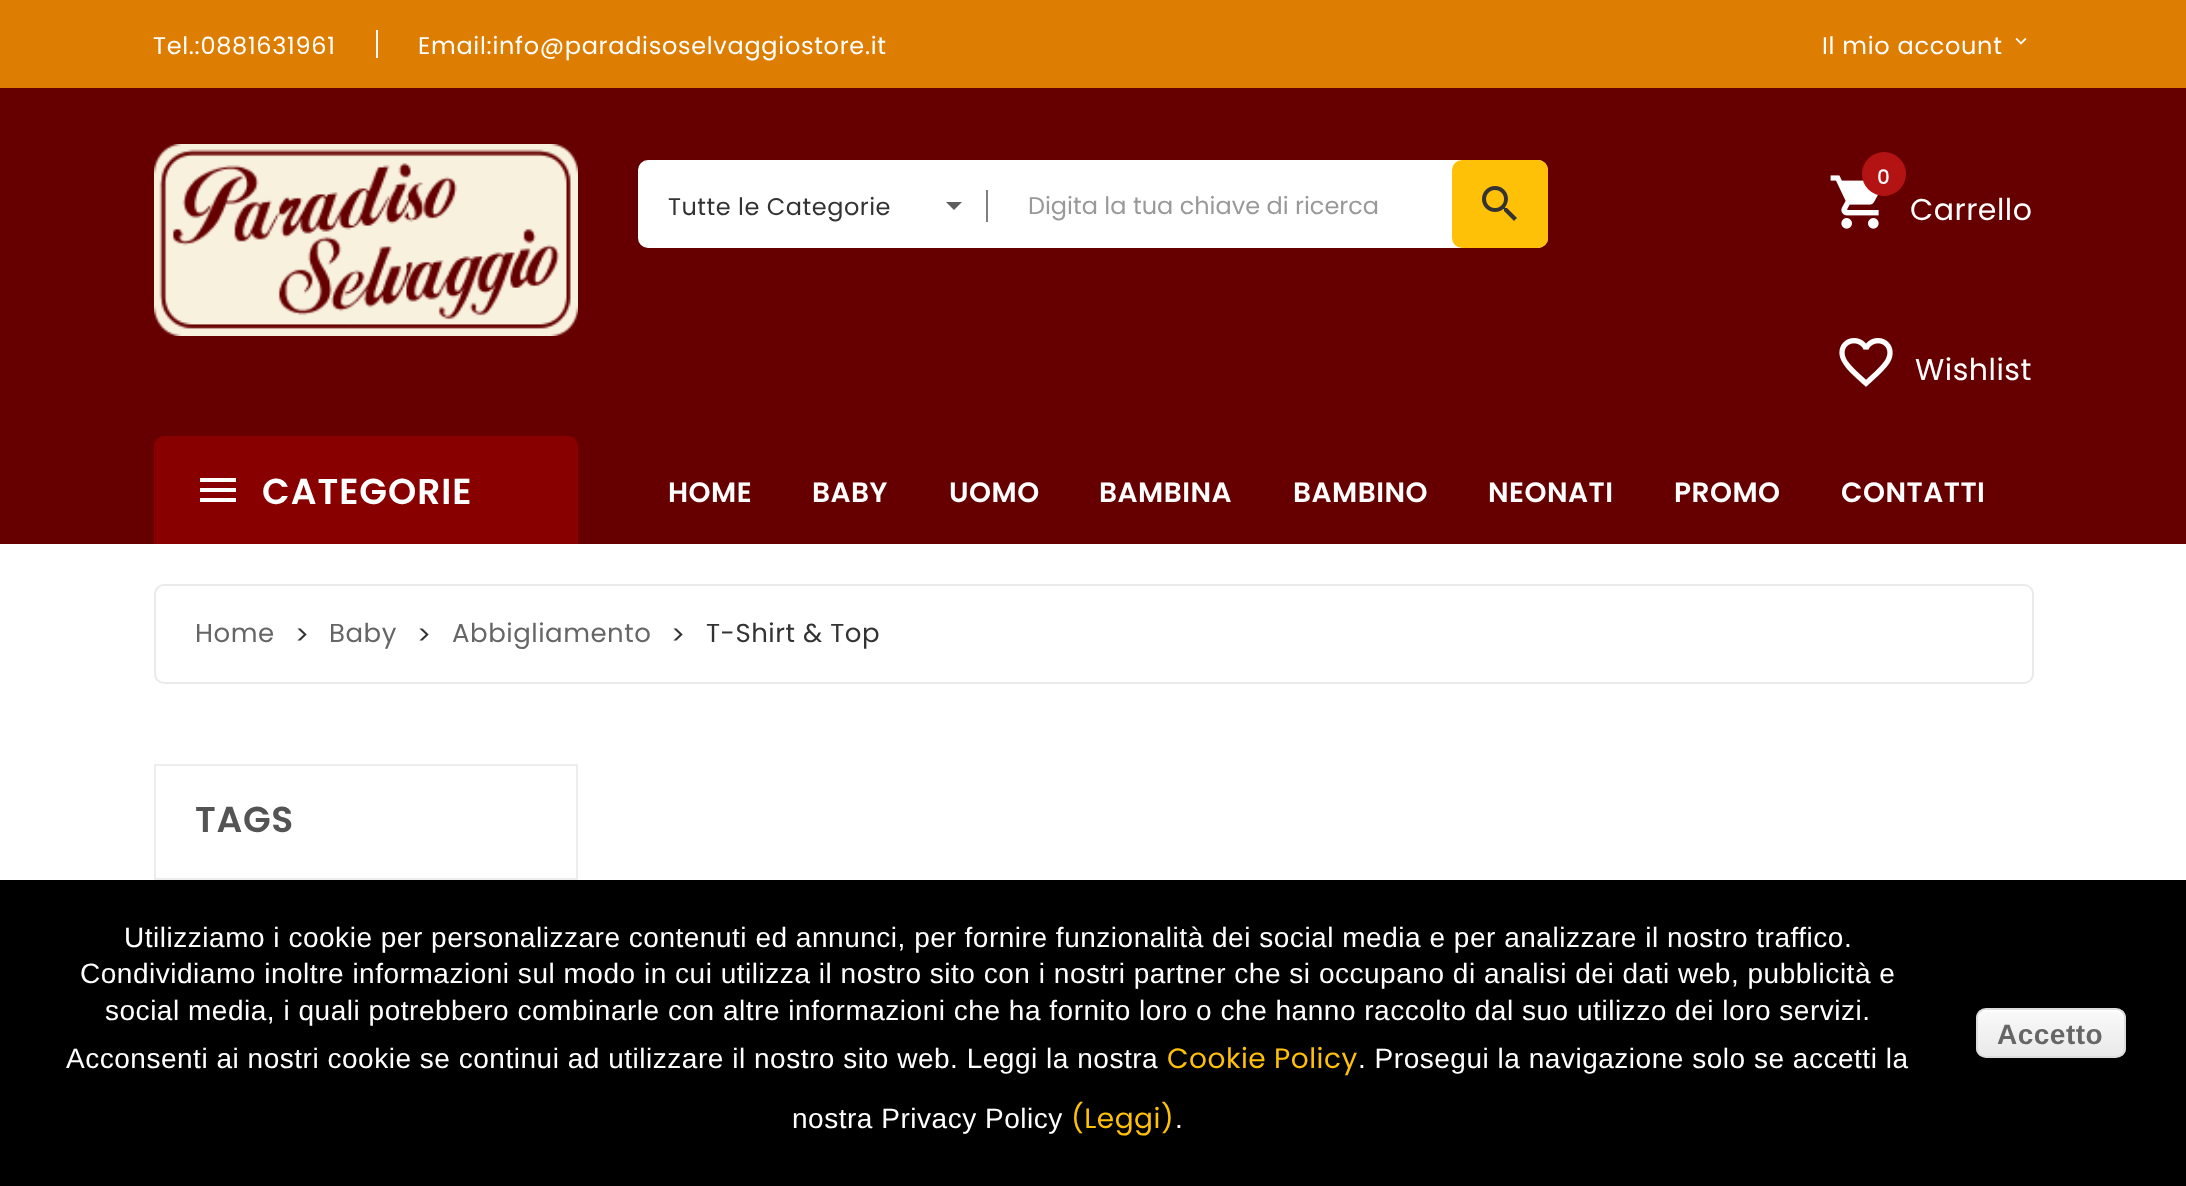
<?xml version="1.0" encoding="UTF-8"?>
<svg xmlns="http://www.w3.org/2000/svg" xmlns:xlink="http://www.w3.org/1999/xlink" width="2186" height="1186">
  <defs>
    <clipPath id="clip1"><rect x="1976" y="1008" width="150" height="50" rx="10" /></clipPath>
    <linearGradient id="g1" gradientUnits="userSpaceOnUse" x1="1978" y1="1010" x2="1978" y2="1056"><stop offset="0.05" stop-color="#f9f9f9" /><stop offset="1" stop-color="#e9e9e9" /></linearGradient>
  </defs>
  <rect width="100%" height="100%" fill="#ffffff" />
  <rect y="88" width="2186" height="456" fill="#660000" />
  <rect width="2186" height="88" fill="#dd7d01" />
  <rect x="376" y="30" width="2" height="28" fill="#f6f7f8" />
  <image x="2015" y="38" width="12" height="7" xlink:href="image1.png" />
  <image x="154" y="144" width="424" height="192" xlink:href="image2.png" />
  <rect x="638" y="160" width="910" height="88" rx="10" fill="#ffffff" />
  <rect x="986" y="190" width="2" height="32" fill="#7f7f7f" />
  <path d="M 946 202 h 16 l -8 8 z" fill="#5d5d5d" />
  <rect x="1452" y="160" width="96" height="88" rx="10" fill="#ffc107" />
  <image x="1482" y="186" width="35" height="35" xlink:href="image3.png" />
  <image x="1830" y="175" width="49" height="54" xlink:href="image4.png" />
  <circle cx="1884" cy="174" r="22" fill="#b31313" />
  <image x="1839" y="338" width="54" height="49" xlink:href="image5.png" />
  <path d="M 164 436 h 404 c 5.5 0 10 4.5 10 10 v 98 h -424 v -98 c 0 -5.5 4.5 -10 10 -10 z" fill="#880000" />
  <path d="M 200 478 h 36 v 4 h -36 z m 0 14 v -4 h 36 v 4 z m 0 10 v -4 h 36 v 4 z" fill="#ffffff" />
  <rect x="155" y="585" width="1878" height="98" rx="9" fill="none" stroke="#eaeaea" stroke-width="2" />
  <rect x="155" y="765" width="422" height="114" fill="none" stroke="#ededed" stroke-width="2" />
  <rect y="880" width="2186" height="306" fill="#000000" />
  <g clip-path="url(#clip1)">
    <rect x="1976" y="1010" width="150" height="46" fill="url(#g1)" />
  </g>
  <path d="M 1986 1012 h 130 c 4 0 8 4 8 8 v -2 c 0 -4 -4 -8 -8 -8 h -130 c -4 0 -8 4 -8 8 v 2 c 0 -4 4 -8 8 -8 z" fill="#ffffff" />
  <rect x="1977" y="1009" width="148" height="48" rx="9" fill="none" stroke="#dcdcdc" stroke-width="2" />
  <text x="153" y="54" style="font-family: Poppins; font-size: 24px; letter-spacing: 0.7px; fill: #ffffff">Tel.:0881631961</text>
  <text x="418" y="54" style="font-family: Poppins; font-size: 24px; letter-spacing: 0.7px; fill: #ffffff">Email:info@paradisoselvaggiostore.it</text>
  <text x="1822" y="54" style="font-family: Poppins; font-size: 24px; letter-spacing: 0.7px; fill: #ffffff">Il mio account</text>
  <text x="668" y="215" style="font-family: Poppins; font-size: 24px; letter-spacing: 0.5px; fill: #333333">Tutte le Categorie</text>
  <text x="1028" y="214" style="font-family: Poppins; font-size: 24px; fill: #999999">Digita la tua chiave di ricerca</text>
  <text x="1877" y="184" style="font-family: Poppins; font-size: 20px; font-weight: 500; fill: #ffffff">0</text>
  <text x="1910" y="220" style="font-family: Poppins; font-size: 30px; letter-spacing: 0.5px; fill: #ffffff">Carrello</text>
  <text x="1915" y="380" style="font-family: Poppins; font-size: 30px; letter-spacing: 0.5px; fill: #ffffff">Wishlist</text>
  <text x="262" y="504" style="font-family: Poppins; font-size: 36px; font-weight: 600; letter-spacing: 1px; fill: #ffffff">CATEGORIE</text>
  <text x="668" y="502" style="font-family: Poppins; font-size: 28px; font-weight: 600; letter-spacing: 0.5px; fill: #ffffff">HOME</text>
  <text x="812" y="502" style="font-family: Poppins; font-size: 28px; font-weight: 600; letter-spacing: 0.5px; fill: #ffffff">BABY</text>
  <text x="949" y="502" style="font-family: Poppins; font-size: 28px; font-weight: 600; letter-spacing: 0.5px; fill: #ffffff">UOMO</text>
  <text x="1099" y="502" style="font-family: Poppins; font-size: 28px; font-weight: 600; letter-spacing: 0.5px; fill: #ffffff">BAMBINA</text>
  <text x="1293" y="502" style="font-family: Poppins; font-size: 28px; font-weight: 600; letter-spacing: 0.5px; fill: #ffffff">BAMBINO</text>
  <text x="1488" y="502" style="font-family: Poppins; font-size: 28px; font-weight: 600; letter-spacing: 0.5px; fill: #ffffff">NEONATI</text>
  <text x="1674" y="502" style="font-family: Poppins; font-size: 28px; font-weight: 600; letter-spacing: 0.5px; fill: #ffffff">PROMO</text>
  <text x="1841" y="502" style="font-family: Poppins; font-size: 28px; font-weight: 600; letter-spacing: 0.5px; fill: #ffffff">CONTATTI</text>
  <text x="195" y="642" style="font-family: Poppins; font-size: 26px; letter-spacing: 0.52px; fill: #666666">Home</text>
  <text x="295" y="644" style="font-family: Poppins; font-size: 26px; letter-spacing: 0.52px; fill: #333333">&gt;</text>
  <text x="329" y="642" style="font-family: Poppins; font-size: 26px; letter-spacing: 0.52px; fill: #666666">Baby</text>
  <text x="417" y="644" style="font-family: Poppins; font-size: 26px; letter-spacing: 0.52px; fill: #333333">&gt;</text>
  <text x="452" y="642" style="font-family: Poppins; font-size: 26px; letter-spacing: 0.52px; fill: #666666">Abbigliamento</text>
  <text x="671" y="644" style="font-family: Poppins; font-size: 26px; letter-spacing: 0.52px; fill: #333333">&gt;</text>
  <text x="706" y="642" style="font-family: Poppins; font-size: 26px; letter-spacing: 0.52px; fill: #333333">T-Shirt &amp; Top</text>
  <text x="195" y="832" style="font-family: Poppins; font-size: 36px; font-weight: 600; letter-spacing: 0.7px; fill: #555454">TAGS</text>
  <text x="124" y="947" style="font-family: Liberation Sans; font-size: 28px; letter-spacing: 0.52px; fill: #ffffff">Utilizziamo i cookie per personalizzare contenuti ed annunci, per fornire funzionalità dei social media e per analizzare il nostro traffico.</text>
  <text x="80" y="983" style="font-family: Liberation Sans; font-size: 28px; letter-spacing: 0.52px; fill: #ffffff">Condividiamo inoltre informazioni sul modo in cui utilizza il nostro sito con i nostri partner che si occupano di analisi dei dati web, pubblicità e</text>
  <text x="105" y="1020" style="font-family: Liberation Sans; font-size: 28px; letter-spacing: 0.52px; fill: #ffffff">social media, i quali potrebbero combinarle con altre informazioni che ha fornito loro o che hanno raccolto dal suo utilizzo dei loro servizi.</text>
  <text x="66" y="1068" style="font-family: Liberation Sans; font-size: 28px; letter-spacing: 0.52px; fill: #ffffff">Acconsenti ai nostri cookie se continui ad utilizzare il nostro sito web. Leggi la nostra</text>
  <text x="1167" y="1068" style="font-family: Poppins; font-size: 28px; letter-spacing: 0.5px; fill: #ffc107">Cookie Policy</text>
  <text x="1358" y="1068" style="font-family: Liberation Sans; font-size: 28px; letter-spacing: 0.52px; fill: #ffffff">. Prosegui la navigazione solo se accetti la</text>
  <text x="792" y="1128" style="font-family: Liberation Sans; font-size: 28px; letter-spacing: 0.52px; fill: #ffffff">nostra Privacy Policy</text>
  <text x="1071" y="1128" style="font-family: Poppins; font-size: 28px; letter-spacing: 0.5px; fill: #ffc107">(Leggi)</text>
  <text x="1175" y="1128" style="font-family: Liberation Sans; font-size: 28px; letter-spacing: 0.52px; fill: #ffffff">.</text>
  <text x="1997" y="1044" style="font-family: Liberation Sans; font-size: 28px; font-weight: bold; letter-spacing: 0.5px; fill: #666666">Accetto</text>
</svg>
